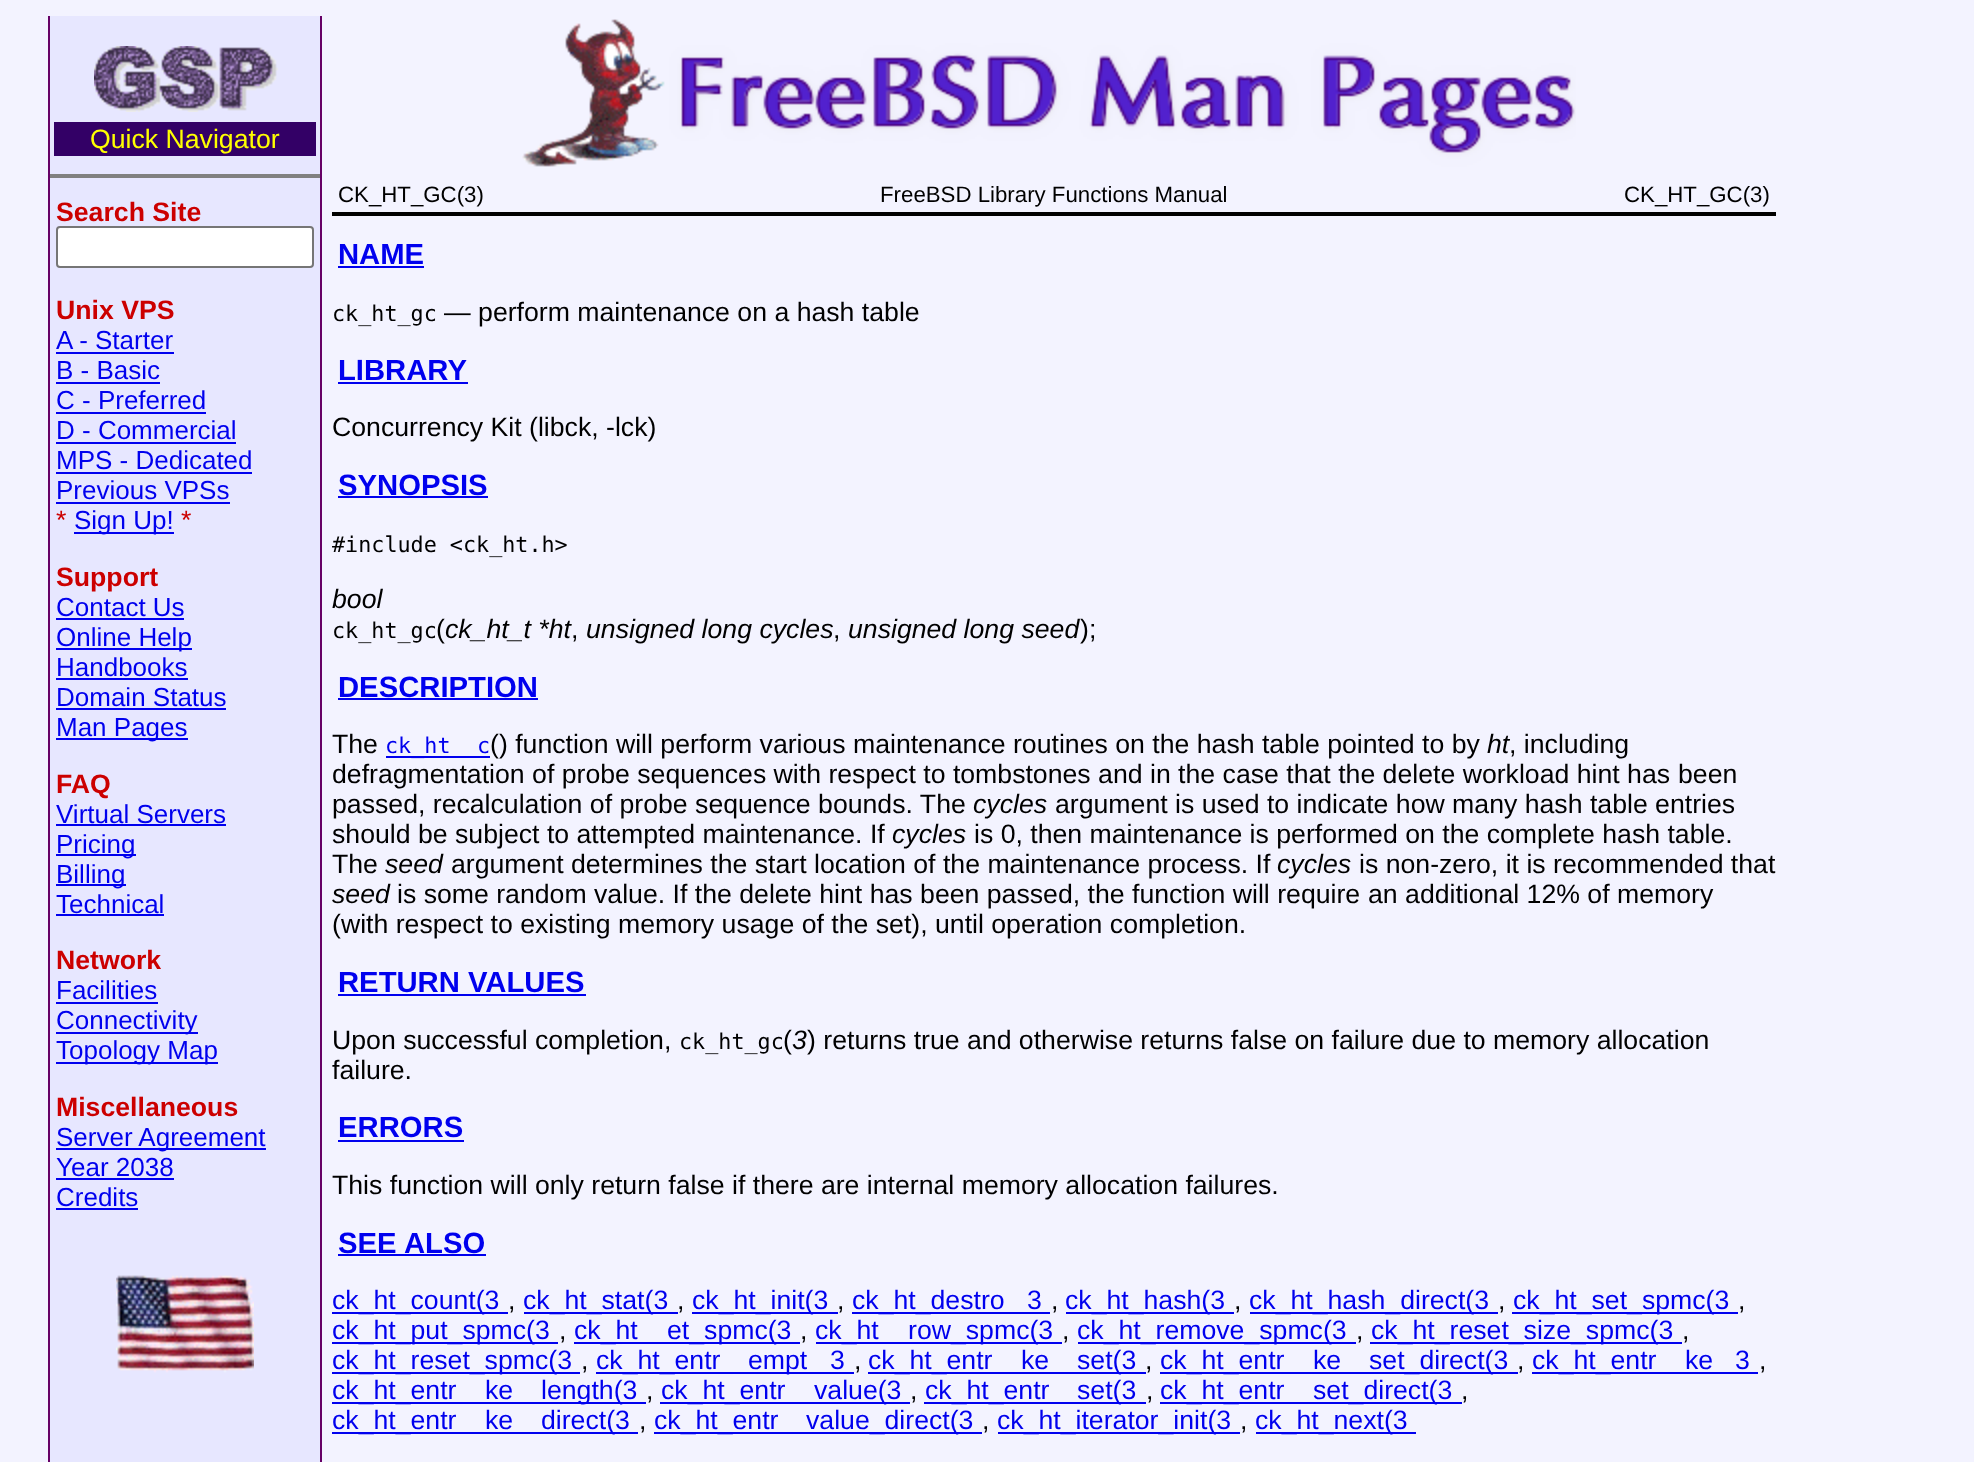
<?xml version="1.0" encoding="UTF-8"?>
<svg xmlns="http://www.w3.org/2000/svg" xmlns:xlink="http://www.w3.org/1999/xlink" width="1974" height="1462">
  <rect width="100%" height="100%" fill="#f3f3ff" />
  <rect x="48" y="16" width="2" height="1446" fill="#660066" />
  <rect x="50" y="16" width="270" height="1446" fill="#e7e7ff" />
  <image x="94" y="46" width="184" height="66" xlink:href="image1.png" />
  <rect x="54" y="122" width="262" height="34" fill="#330066" />
  <rect x="50" y="174" width="270" height="4" fill="#808080" />
  <rect x="57" y="227" width="256" height="40" rx="3" fill="#ffffff" stroke="#767676" stroke-width="2" />
  <rect x="56" y="352" width="118" height="2" fill="#0000ee" />
  <rect x="56" y="382" width="104" height="2" fill="#0000ee" />
  <rect x="56" y="412" width="150" height="2" fill="#0000ee" />
  <rect x="56" y="442" width="180" height="2" fill="#0000ee" />
  <rect x="56" y="472" width="196" height="2" fill="#0000ee" />
  <rect x="56" y="502" width="174" height="2" fill="#0000ee" />
  <rect x="74" y="532" width="100" height="2" fill="#0000ee" />
  <rect x="56" y="618" width="128" height="2" fill="#0000ee" />
  <rect x="56" y="648" width="136" height="2" fill="#0000ee" />
  <rect x="56" y="678" width="132" height="2" fill="#0000ee" />
  <rect x="56" y="708" width="170" height="2" fill="#0000ee" />
  <rect x="56" y="738" width="132" height="2" fill="#0000ee" />
  <rect x="56" y="824" width="170" height="2" fill="#0000ee" />
  <rect x="56" y="854" width="80" height="2" fill="#0000ee" />
  <rect x="56" y="884" width="70" height="2" fill="#0000ee" />
  <rect x="56" y="914" width="108" height="2" fill="#0000ee" />
  <rect x="56" y="1002" width="102" height="2" fill="#0000ee" />
  <rect x="56" y="1032" width="142" height="2" fill="#0000ee" />
  <rect x="56" y="1062" width="162" height="2" fill="#0000ee" />
  <rect x="56" y="1148" width="210" height="2" fill="#0000ee" />
  <rect x="56" y="1178" width="118" height="2" fill="#0000ee" />
  <rect x="56" y="1208" width="82" height="2" fill="#0000ee" />
  <image x="116" y="1275" width="138" height="98" xlink:href="image2.png" />
  <rect x="320" y="16" width="2" height="1446" fill="#660066" />
  <image x="522" y="19" width="1054" height="148" xlink:href="image3.png" />
  <rect x="332" y="212" width="1444" height="4" fill="#000000" />
  <rect x="338" y="266" width="86" height="2" fill="#0000ee" />
  <rect x="338" y="382" width="130" height="2" fill="#0000ee" />
  <rect x="338" y="496" width="150" height="2" fill="#0000ee" />
  <rect x="338" y="698" width="200" height="2" fill="#0000ee" />
  <rect x="386" y="756" width="104" height="2" fill="#0000ee" />
  <rect x="338" y="994" width="248" height="2" fill="#0000ee" />
  <rect x="338" y="1140" width="126" height="2" fill="#0000ee" />
  <rect x="338" y="1254" width="148" height="2" fill="#0000ee" />
  <rect x="332" y="1312" width="176" height="2" fill="#0000ee" />
  <rect x="524" y="1312" width="154" height="2" fill="#0000ee" />
  <rect x="692" y="1312" width="146" height="2" fill="#0000ee" />
  <rect x="852" y="1312" width="198" height="2" fill="#0000ee" />
  <rect x="1066" y="1312" width="168" height="2" fill="#0000ee" />
  <rect x="1250" y="1312" width="248" height="2" fill="#0000ee" />
  <rect x="1512" y="1312" width="226" height="2" fill="#0000ee" />
  <rect x="332" y="1342" width="226" height="2" fill="#0000ee" />
  <rect x="574" y="1342" width="226" height="2" fill="#0000ee" />
  <rect x="816" y="1342" width="246" height="2" fill="#0000ee" />
  <rect x="1078" y="1342" width="278" height="2" fill="#0000ee" />
  <rect x="1370" y="1342" width="312" height="2" fill="#0000ee" />
  <rect x="332" y="1372" width="248" height="2" fill="#0000ee" />
  <rect x="596" y="1372" width="258" height="2" fill="#0000ee" />
  <rect x="868" y="1372" width="278" height="2" fill="#0000ee" />
  <rect x="1160" y="1372" width="358" height="2" fill="#0000ee" />
  <rect x="1532" y="1372" width="226" height="2" fill="#0000ee" />
  <rect x="332" y="1402" width="314" height="2" fill="#0000ee" />
  <rect x="660" y="1402" width="250" height="2" fill="#0000ee" />
  <rect x="924" y="1402" width="222" height="2" fill="#0000ee" />
  <rect x="1160" y="1402" width="302" height="2" fill="#0000ee" />
  <rect x="332" y="1432" width="306" height="2" fill="#0000ee" />
  <rect x="654" y="1432" width="328" height="2" fill="#0000ee" />
  <rect x="998" y="1432" width="242" height="2" fill="#0000ee" />
  <rect x="1256" y="1432" width="160" height="2" fill="#0000ee" />
  <text x="90" y="148" style="font-family: Liberation Sans; font-size: 26.67px; fill: #ffff00">Quick Navigator</text>
  <text x="56" y="221" style="font-family: Liberation Sans; font-size: 26.67px; font-weight: bold; fill: #cc0000">Search Site</text>
  <text x="56" y="319" style="font-family: Liberation Sans; font-size: 26.67px; font-weight: bold; fill: #cc0000">Unix VPS</text>
  <text x="56" y="349" style="font-family: Liberation Sans; font-size: 26px; fill: #0000ee">A - Starter</text>
  <text x="56" y="379" style="font-family: Liberation Sans; font-size: 26px; fill: #0000ee">B - Basic</text>
  <text x="56" y="409" style="font-family: Liberation Sans; font-size: 26px; fill: #0000ee">C - Preferred</text>
  <text x="56" y="439" style="font-family: Liberation Sans; font-size: 26px; fill: #0000ee">D - Commercial</text>
  <text x="56" y="469" style="font-family: Liberation Sans; font-size: 26px; fill: #0000ee">MPS - Dedicated</text>
  <text x="56" y="499" style="font-family: Liberation Sans; font-size: 26px; fill: #0000ee">Previous VPSs</text>
  <text x="56" y="529" style="font-family: Liberation Sans; font-size: 26.67px; fill: #cc0000">*</text>
  <text x="74" y="529" style="font-family: Liberation Sans; font-size: 26px; fill: #0000ee">Sign Up!</text>
  <text x="181" y="529" style="font-family: Liberation Sans; font-size: 26.67px; fill: #cc0000">*</text>
  <text x="56" y="586" style="font-family: Liberation Sans; font-size: 26.67px; font-weight: bold; fill: #cc0000">Support</text>
  <text x="56" y="616" style="font-family: Liberation Sans; font-size: 26px; fill: #0000ee">Contact Us</text>
  <text x="56" y="646" style="font-family: Liberation Sans; font-size: 26px; fill: #0000ee">Online Help</text>
  <text x="56" y="676" style="font-family: Liberation Sans; font-size: 26px; fill: #0000ee">Handbooks</text>
  <text x="56" y="706" style="font-family: Liberation Sans; font-size: 26px; fill: #0000ee">Domain Status</text>
  <text x="56" y="736" style="font-family: Liberation Sans; font-size: 26px; fill: #0000ee">Man Pages</text>
  <text x="56" y="793" style="font-family: Liberation Sans; font-size: 26.67px; font-weight: bold; fill: #cc0000">FAQ</text>
  <text x="56" y="823" style="font-family: Liberation Sans; font-size: 26px; fill: #0000ee">Virtual Servers</text>
  <text x="56" y="853" style="font-family: Liberation Sans; font-size: 26px; fill: #0000ee">Pricing</text>
  <text x="56" y="883" style="font-family: Liberation Sans; font-size: 26px; fill: #0000ee">Billing</text>
  <text x="56" y="913" style="font-family: Liberation Sans; font-size: 26px; fill: #0000ee">Technical</text>
  <text x="56" y="969" style="font-family: Liberation Sans; font-size: 26.67px; font-weight: bold; fill: #cc0000">Network</text>
  <text x="56" y="999" style="font-family: Liberation Sans; font-size: 26px; fill: #0000ee">Facilities</text>
  <text x="56" y="1029" style="font-family: Liberation Sans; font-size: 26px; fill: #0000ee">Connectivity</text>
  <text x="56" y="1059" style="font-family: Liberation Sans; font-size: 26px; fill: #0000ee">Topology Map</text>
  <text x="56" y="1116" style="font-family: Liberation Sans; font-size: 26.67px; font-weight: bold; fill: #cc0000">Miscellaneous</text>
  <text x="56" y="1146" style="font-family: Liberation Sans; font-size: 26px; fill: #0000ee">Server Agreement</text>
  <text x="56" y="1176" style="font-family: Liberation Sans; font-size: 26px; fill: #0000ee">Year 2038</text>
  <text x="56" y="1206" style="font-family: Liberation Sans; font-size: 26px; fill: #0000ee">Credits</text>
  <text x="338" y="202" style="font-family: Liberation Sans; font-size: 22.25px; fill: #000000">CK_HT_GC(3)</text>
  <text x="880" y="202" style="font-family: Liberation Sans; font-size: 22.25px; fill: #000000">FreeBSD Library Functions Manual</text>
  <text x="1624" y="202" style="font-family: Liberation Sans; font-size: 22.25px; fill: #000000">CK_HT_GC(3)</text>
  <text x="338" y="264" style="font-family: Liberation Sans; font-size: 29.25px; font-weight: bold; fill: #0000ee">NAME</text>
  <text x="332" y="321" style="font-family: DejaVu Sans Mono; font-size: 21.75px; fill: #000000">ck_ht_gc</text>
  <text x="444" y="321" style="font-family: Liberation Sans; font-size: 26.67px; fill: #000000">— perform maintenance on a hash table</text>
  <text x="338" y="380" style="font-family: Liberation Sans; font-size: 29.25px; font-weight: bold; fill: #0000ee">LIBRARY</text>
  <text x="332" y="436" style="font-family: Liberation Sans; font-size: 26.67px; fill: #000000">Concurrency Kit (libck, -lck)</text>
  <text x="338" y="495" style="font-family: Liberation Sans; font-size: 29.25px; font-weight: bold; fill: #0000ee">SYNOPSIS</text>
  <text x="332" y="552" style="font-family: DejaVu Sans Mono; font-size: 21.75px; fill: #000000">#include &lt;ck_ht.h&gt;</text>
  <text x="332" y="608" style="font-family: Liberation Sans; font-size: 26.67px; font-style: italic; fill: #000000">bool</text>
  <text x="332" y="638" style="font-family: DejaVu Sans Mono; font-size: 21.75px; fill: #000000">ck_ht_gc</text>
  <text x="436" y="638" style="font-family: Liberation Sans; font-size: 26.67px; fill: #000000">(</text>
  <text x="445" y="638" style="font-family: Liberation Sans; font-size: 26.67px; font-style: italic; fill: #000000">ck_ht_t *ht</text>
  <text x="571" y="638" style="font-family: Liberation Sans; font-size: 26.67px; fill: #000000">,</text>
  <text x="586" y="638" style="font-family: Liberation Sans; font-size: 26.67px; font-style: italic; fill: #000000">unsigned long cycles</text>
  <text x="833" y="638" style="font-family: Liberation Sans; font-size: 26.67px; fill: #000000">,</text>
  <text x="848" y="638" style="font-family: Liberation Sans; font-size: 26.67px; font-style: italic; fill: #000000">unsigned long seed</text>
  <text x="1080" y="638" style="font-family: Liberation Sans; font-size: 26.67px; fill: #000000">);</text>
  <text x="338" y="697" style="font-family: Liberation Sans; font-size: 29.25px; font-weight: bold; fill: #0000ee">DESCRIPTION</text>
  <text x="332" y="753" style="font-family: Liberation Sans; font-size: 26.67px; fill: #000000">The</text>
  <text x="385" y="753" style="font-family: DejaVu Sans Mono; font-size: 21.75px; fill: #0000ee">ck_ht</text>
  <text x="477" y="753" style="font-family: DejaVu Sans Mono; font-size: 21.75px; fill: #0000ee">c</text>
  <text x="490" y="753" style="font-family: Liberation Sans; font-size: 26.67px; fill: #000000">() function will perform various maintenance routines on the hash table pointed</text>
  <text x="1422" y="753" style="font-family: Liberation Sans; font-size: 26.67px; fill: #000000">to by</text>
  <text x="1487" y="753" style="font-family: Liberation Sans; font-size: 26.67px; font-style: italic; fill: #000000">ht</text>
  <text x="1509" y="753" style="font-family: Liberation Sans; font-size: 26.67px; fill: #000000">, including</text>
  <text x="332" y="783" style="font-family: Liberation Sans; font-size: 26.67px; fill: #000000">defragmentation of probe sequences with respect to tombstones and in the case that the delete workload hint has</text>
  <text x="1678" y="783" style="font-family: Liberation Sans; font-size: 26.67px; fill: #000000">been</text>
  <text x="332" y="813" style="font-family: Liberation Sans; font-size: 26.67px; fill: #000000">passed, recalculation of probe sequence bounds. The</text>
  <text x="973" y="813" style="font-family: Liberation Sans; font-size: 26.67px; font-style: italic; fill: #000000">cycles</text>
  <text x="1055" y="813" style="font-family: Liberation Sans; font-size: 26.67px; fill: #000000">argument is used to indicate how many hash table entries</text>
  <text x="332" y="843" style="font-family: Liberation Sans; font-size: 26.67px; fill: #000000">should be subject to attempted maintenance. If</text>
  <text x="892" y="843" style="font-family: Liberation Sans; font-size: 26.67px; font-style: italic; fill: #000000">cycles</text>
  <text x="974" y="843" style="font-family: Liberation Sans; font-size: 26.67px; fill: #000000">is 0, then maintenance is performed on the complete hash table.</text>
  <text x="332" y="873" style="font-family: Liberation Sans; font-size: 26.67px; fill: #000000">The</text>
  <text x="385" y="873" style="font-family: Liberation Sans; font-size: 26.67px; font-style: italic; fill: #000000">seed</text>
  <text x="451" y="873" style="font-family: Liberation Sans; font-size: 26.67px; fill: #000000">argument determines the start location of the maintenance process. If</text>
  <text x="1277" y="873" style="font-family: Liberation Sans; font-size: 26.67px; font-style: italic; fill: #000000">cycles</text>
  <text x="1359" y="873" style="font-family: Liberation Sans; font-size: 26.67px; fill: #000000">is non-zero, it is recommended that</text>
  <text x="332" y="903" style="font-family: Liberation Sans; font-size: 26.67px; font-style: italic; fill: #000000">seed</text>
  <text x="397" y="903" style="font-family: Liberation Sans; font-size: 26.67px; fill: #000000">is some random value. If the delete hint has been passed, the function will require</text>
  <text x="1368" y="903" style="font-family: Liberation Sans; font-size: 26.67px; fill: #000000">an additional 12% of memory</text>
  <text x="332" y="933" style="font-family: Liberation Sans; font-size: 26.67px; fill: #000000">(with respect to existing memory usage of the set), until operation completion.</text>
  <text x="338" y="992" style="font-family: Liberation Sans; font-size: 29.25px; font-weight: bold; fill: #0000ee">RETURN VALUES</text>
  <text x="332" y="1049" style="font-family: Liberation Sans; font-size: 26.67px; fill: #000000">Upon successful completion,</text>
  <text x="679" y="1049" style="font-family: DejaVu Sans Mono; font-size: 21.75px; fill: #000000">ck_ht_gc</text>
  <text x="783" y="1049" style="font-family: Liberation Sans; font-size: 26.67px; fill: #000000">(</text>
  <text x="792" y="1049" style="font-family: Liberation Sans; font-size: 26.67px; font-style: italic; fill: #000000">3</text>
  <text x="807" y="1049" style="font-family: Liberation Sans; font-size: 26.67px; fill: #000000">) returns true and otherwise returns false on failure due to memory allocation</text>
  <text x="332" y="1079" style="font-family: Liberation Sans; font-size: 26.67px; fill: #000000">failure.</text>
  <text x="338" y="1137" style="font-family: Liberation Sans; font-size: 29.25px; font-weight: bold; fill: #0000ee">ERRORS</text>
  <text x="332" y="1194" style="font-family: Liberation Sans; font-size: 26.67px; fill: #000000">This function will only return false if there are internal memory allocation failures.</text>
  <text x="338" y="1253" style="font-family: Liberation Sans; font-size: 29.25px; font-weight: bold; fill: #0000ee">SEE</text>
  <text x="404" y="1253" style="font-family: Liberation Sans; font-size: 29.25px; font-weight: bold; fill: #0000ee">ALSO</text>
  <text x="332" y="1309" style="font-family: Liberation Sans; font-size: 26.67px; fill: #0000ee">ck_ht_count(3</text>
  <text x="508" y="1309" style="font-family: Liberation Sans; font-size: 26.67px; fill: #000000">,</text>
  <text x="523" y="1309" style="font-family: Liberation Sans; font-size: 26.67px; fill: #0000ee">ck_ht_stat(3</text>
  <text x="677" y="1309" style="font-family: Liberation Sans; font-size: 26.67px; fill: #000000">,</text>
  <text x="692" y="1309" style="font-family: Liberation Sans; font-size: 26.67px; fill: #0000ee">ck_ht_init(3</text>
  <text x="837" y="1309" style="font-family: Liberation Sans; font-size: 26.67px; fill: #000000">,</text>
  <text x="852" y="1309" style="font-family: Liberation Sans; font-size: 26.67px; fill: #0000ee">ck_ht_destro</text>
  <text x="1027" y="1309" style="font-family: Liberation Sans; font-size: 26.67px; fill: #0000ee">3</text>
  <text x="1051" y="1309" style="font-family: Liberation Sans; font-size: 26.67px; fill: #000000">,</text>
  <text x="1065" y="1309" style="font-family: Liberation Sans; font-size: 26.67px; fill: #0000ee">ck_ht_hash(3</text>
  <text x="1234" y="1309" style="font-family: Liberation Sans; font-size: 26.67px; fill: #000000">,</text>
  <text x="1249" y="1309" style="font-family: Liberation Sans; font-size: 26.67px; fill: #0000ee">ck_ht_hash_direct(3</text>
  <text x="1498" y="1309" style="font-family: Liberation Sans; font-size: 26.67px; fill: #000000">,</text>
  <text x="1513" y="1309" style="font-family: Liberation Sans; font-size: 26.67px; fill: #0000ee">ck_ht_set_spmc(3</text>
  <text x="1738" y="1309" style="font-family: Liberation Sans; font-size: 26.67px; fill: #000000">,</text>
  <text x="332" y="1339" style="font-family: Liberation Sans; font-size: 26.67px; fill: #0000ee">ck_ht_put_spmc(3</text>
  <text x="559" y="1339" style="font-family: Liberation Sans; font-size: 26.67px; fill: #000000">,</text>
  <text x="574" y="1339" style="font-family: Liberation Sans; font-size: 26.67px; fill: #0000ee">ck_ht</text>
  <text x="667" y="1339" style="font-family: Liberation Sans; font-size: 26.67px; fill: #0000ee">et_spmc(3</text>
  <text x="800" y="1339" style="font-family: Liberation Sans; font-size: 26.67px; fill: #000000">,</text>
  <text x="815" y="1339" style="font-family: Liberation Sans; font-size: 26.67px; fill: #0000ee">ck_ht</text>
  <text x="908" y="1339" style="font-family: Liberation Sans; font-size: 26.67px; fill: #0000ee">row_spmc(3</text>
  <text x="1062" y="1339" style="font-family: Liberation Sans; font-size: 26.67px; fill: #000000">,</text>
  <text x="1077" y="1339" style="font-family: Liberation Sans; font-size: 26.67px; fill: #0000ee">ck_ht_remove_spmc(3</text>
  <text x="1356" y="1339" style="font-family: Liberation Sans; font-size: 26.67px; fill: #000000">,</text>
  <text x="1371" y="1339" style="font-family: Liberation Sans; font-size: 26.67px; fill: #0000ee">ck_ht_reset_size_spmc(3</text>
  <text x="1682" y="1339" style="font-family: Liberation Sans; font-size: 26.67px; fill: #000000">,</text>
  <text x="332" y="1369" style="font-family: Liberation Sans; font-size: 26.67px; fill: #0000ee">ck_ht_reset_spmc(3</text>
  <text x="581" y="1369" style="font-family: Liberation Sans; font-size: 26.67px; fill: #000000">,</text>
  <text x="596" y="1369" style="font-family: Liberation Sans; font-size: 26.67px; fill: #0000ee">ck_ht_entr</text>
  <text x="748" y="1369" style="font-family: Liberation Sans; font-size: 26.67px; fill: #0000ee">empt</text>
  <text x="830" y="1369" style="font-family: Liberation Sans; font-size: 26.67px; fill: #0000ee">3</text>
  <text x="854" y="1369" style="font-family: Liberation Sans; font-size: 26.67px; fill: #000000">,</text>
  <text x="868" y="1369" style="font-family: Liberation Sans; font-size: 26.67px; fill: #0000ee">ck_ht_entr</text>
  <text x="1021" y="1369" style="font-family: Liberation Sans; font-size: 26.67px; fill: #0000ee">ke</text>
  <text x="1077" y="1369" style="font-family: Liberation Sans; font-size: 26.67px; fill: #0000ee">set(3</text>
  <text x="1145" y="1369" style="font-family: Liberation Sans; font-size: 26.67px; fill: #000000">,</text>
  <text x="1160" y="1369" style="font-family: Liberation Sans; font-size: 26.67px; fill: #0000ee">ck_ht_entr</text>
  <text x="1313" y="1369" style="font-family: Liberation Sans; font-size: 26.67px; fill: #0000ee">ke</text>
  <text x="1369" y="1369" style="font-family: Liberation Sans; font-size: 26.67px; fill: #0000ee">set_direct(3</text>
  <text x="1517" y="1369" style="font-family: Liberation Sans; font-size: 26.67px; fill: #000000">,</text>
  <text x="1532" y="1369" style="font-family: Liberation Sans; font-size: 26.67px; fill: #0000ee">ck_ht_entr</text>
  <text x="1685" y="1369" style="font-family: Liberation Sans; font-size: 26.67px; fill: #0000ee">ke</text>
  <text x="1735" y="1369" style="font-family: Liberation Sans; font-size: 26.67px; fill: #0000ee">3</text>
  <text x="1759" y="1369" style="font-family: Liberation Sans; font-size: 26.67px; fill: #000000">,</text>
  <text x="332" y="1399" style="font-family: Liberation Sans; font-size: 26.67px; fill: #0000ee">ck_ht_entr</text>
  <text x="485" y="1399" style="font-family: Liberation Sans; font-size: 26.67px; fill: #0000ee">ke</text>
  <text x="541" y="1399" style="font-family: Liberation Sans; font-size: 26.67px; fill: #0000ee">length(3</text>
  <text x="646" y="1399" style="font-family: Liberation Sans; font-size: 26.67px; fill: #000000">,</text>
  <text x="661" y="1399" style="font-family: Liberation Sans; font-size: 26.67px; fill: #0000ee">ck_ht_entr</text>
  <text x="814" y="1399" style="font-family: Liberation Sans; font-size: 26.67px; fill: #0000ee">value(3</text>
  <text x="910" y="1399" style="font-family: Liberation Sans; font-size: 26.67px; fill: #000000">,</text>
  <text x="925" y="1399" style="font-family: Liberation Sans; font-size: 26.67px; fill: #0000ee">ck_ht_entr</text>
  <text x="1077" y="1399" style="font-family: Liberation Sans; font-size: 26.67px; fill: #0000ee">set(3</text>
  <text x="1146" y="1399" style="font-family: Liberation Sans; font-size: 26.67px; fill: #000000">,</text>
  <text x="1160" y="1399" style="font-family: Liberation Sans; font-size: 26.67px; fill: #0000ee">ck_ht_entr</text>
  <text x="1313" y="1399" style="font-family: Liberation Sans; font-size: 26.67px; fill: #0000ee">set_direct(3</text>
  <text x="1461" y="1399" style="font-family: Liberation Sans; font-size: 26.67px; fill: #000000">,</text>
  <text x="332" y="1429" style="font-family: Liberation Sans; font-size: 26.67px; fill: #0000ee">ck_ht_entr</text>
  <text x="485" y="1429" style="font-family: Liberation Sans; font-size: 26.67px; fill: #0000ee">ke</text>
  <text x="541" y="1429" style="font-family: Liberation Sans; font-size: 26.67px; fill: #0000ee">direct(3</text>
  <text x="639" y="1429" style="font-family: Liberation Sans; font-size: 26.67px; fill: #000000">,</text>
  <text x="654" y="1429" style="font-family: Liberation Sans; font-size: 26.67px; fill: #0000ee">ck_ht_entr</text>
  <text x="806" y="1429" style="font-family: Liberation Sans; font-size: 26.67px; fill: #0000ee">value_direct(3</text>
  <text x="982" y="1429" style="font-family: Liberation Sans; font-size: 26.67px; fill: #000000">,</text>
  <text x="997" y="1429" style="font-family: Liberation Sans; font-size: 26.67px; fill: #0000ee">ck_ht_iterator_init(3</text>
  <text x="1240" y="1429" style="font-family: Liberation Sans; font-size: 26.67px; fill: #000000">,</text>
  <text x="1255" y="1429" style="font-family: Liberation Sans; font-size: 26.67px; fill: #0000ee">ck_ht_next(3</text>
</svg>
